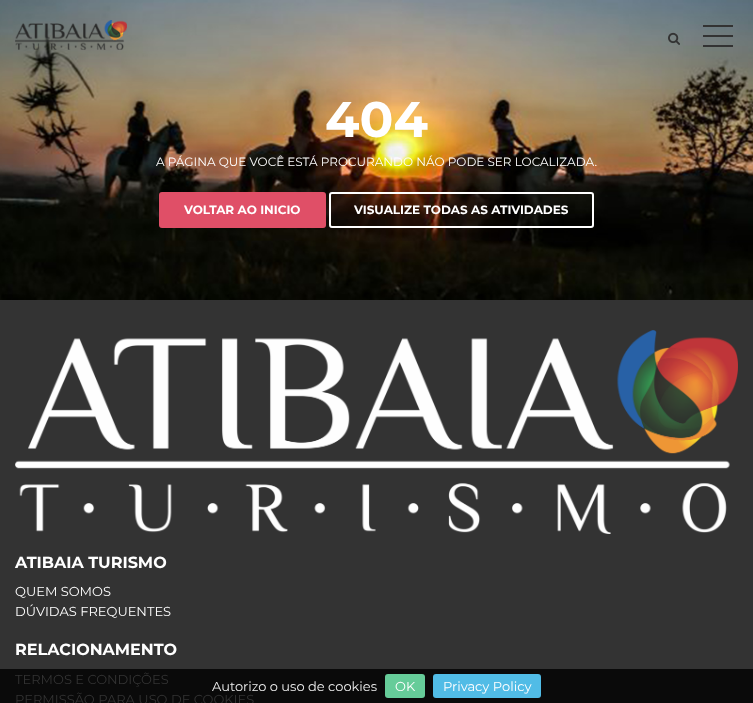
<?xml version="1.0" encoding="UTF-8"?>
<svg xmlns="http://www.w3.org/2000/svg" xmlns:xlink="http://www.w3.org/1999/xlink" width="753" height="703">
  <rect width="100%" height="100%" fill="#333333" />
  <image x="0" y="0" width="753" height="300" xlink:href="image3.png" />
  <image x="15" y="20" width="112" height="30" xlink:href="image1.png" />
  <image x="668" y="32" width="12" height="13" xlink:href="image2.png" />
  <rect x="703" y="35" width="30" height="2" fill="#333333" />
  <rect x="703" y="25" width="30" height="2" fill="#333333" />
  <rect x="703" y="45" width="30" height="2" fill="#333333" />
  <rect x="159" y="192" width="167" height="36" rx="3" fill="#e04f67" />
  <rect x="330" y="193" width="263" height="34" rx="2" fill="none" stroke="#ffffff" stroke-width="2" />
  <rect y="669" width="753" height="34" fill="#0a0a0a" />
  <image x="15" y="330" width="723" height="204" xlink:href="image4.png" />
  <rect x="385" y="674" width="40" height="24" rx="3" fill="#66cc99" />
  <rect x="433" y="674" width="108" height="24" rx="3" fill="#51bce6" />
  <text x="325" y="137" style="font-family: Montserrat; font-size: 50px; font-weight: bold; fill: #ffffff">404</text>
  <text x="156" y="166" style="font-family: Montserrat; font-size: 12px; font-weight: 100; fill: #ffffff">A PÁGINA QUE VOCÊ ESTÁ PROCURANDO NÁO PODE SER LOCALIZADA.</text>
  <text x="184" y="214" style="font-family: Montserrat; font-size: 12px; font-weight: bold; fill: #ffffff">VOLTAR AO INICIO</text>
  <text x="354" y="214" style="font-family: Montserrat; font-size: 12px; font-weight: bold; fill: #ffffff">VISUALIZE TODAS AS ATIVIDADES</text>
  <text x="15" y="568" style="font-family: Montserrat; font-size: 16px; font-weight: bold; fill: #ffffff">ATIBAIA TURISMO</text>
  <text x="15" y="596" style="font-family: Montserrat; font-size: 13px; font-weight: 100; fill: #ffffff">QUEM SOMOS</text>
  <text x="15" y="616" style="font-family: Montserrat; font-size: 13px; font-weight: 100; fill: #ffffff">DÚVIDAS FREQUENTES</text>
  <text x="15" y="655" style="font-family: Montserrat; font-size: 16px; font-weight: bold; fill: #ffffff">RELACIONAMENTO</text>
  <text x="15" y="684" style="font-family: Montserrat; font-size: 13px; font-weight: 100; fill: #333333">TERMOS E CONDIÇÕES</text>
  <text x="15" y="704" style="font-family: Montserrat; font-size: 13px; font-weight: 100; fill: #333333">PERMISSÃO PARA USO DE COOKIES</text>
  <text x="212" y="691" style="font-family: Montserrat; font-size: 13px; font-weight: 100; fill: #eeeeee">Autorizo o uso de cookies</text>
  <text x="395" y="691" style="font-family: Montserrat; font-size: 13px; font-weight: 100; fill: #ffffff">OK</text>
  <text x="443" y="691" style="font-family: Montserrat; font-size: 13px; font-weight: 100; fill: #ffffff">Privacy Policy</text>
</svg>
